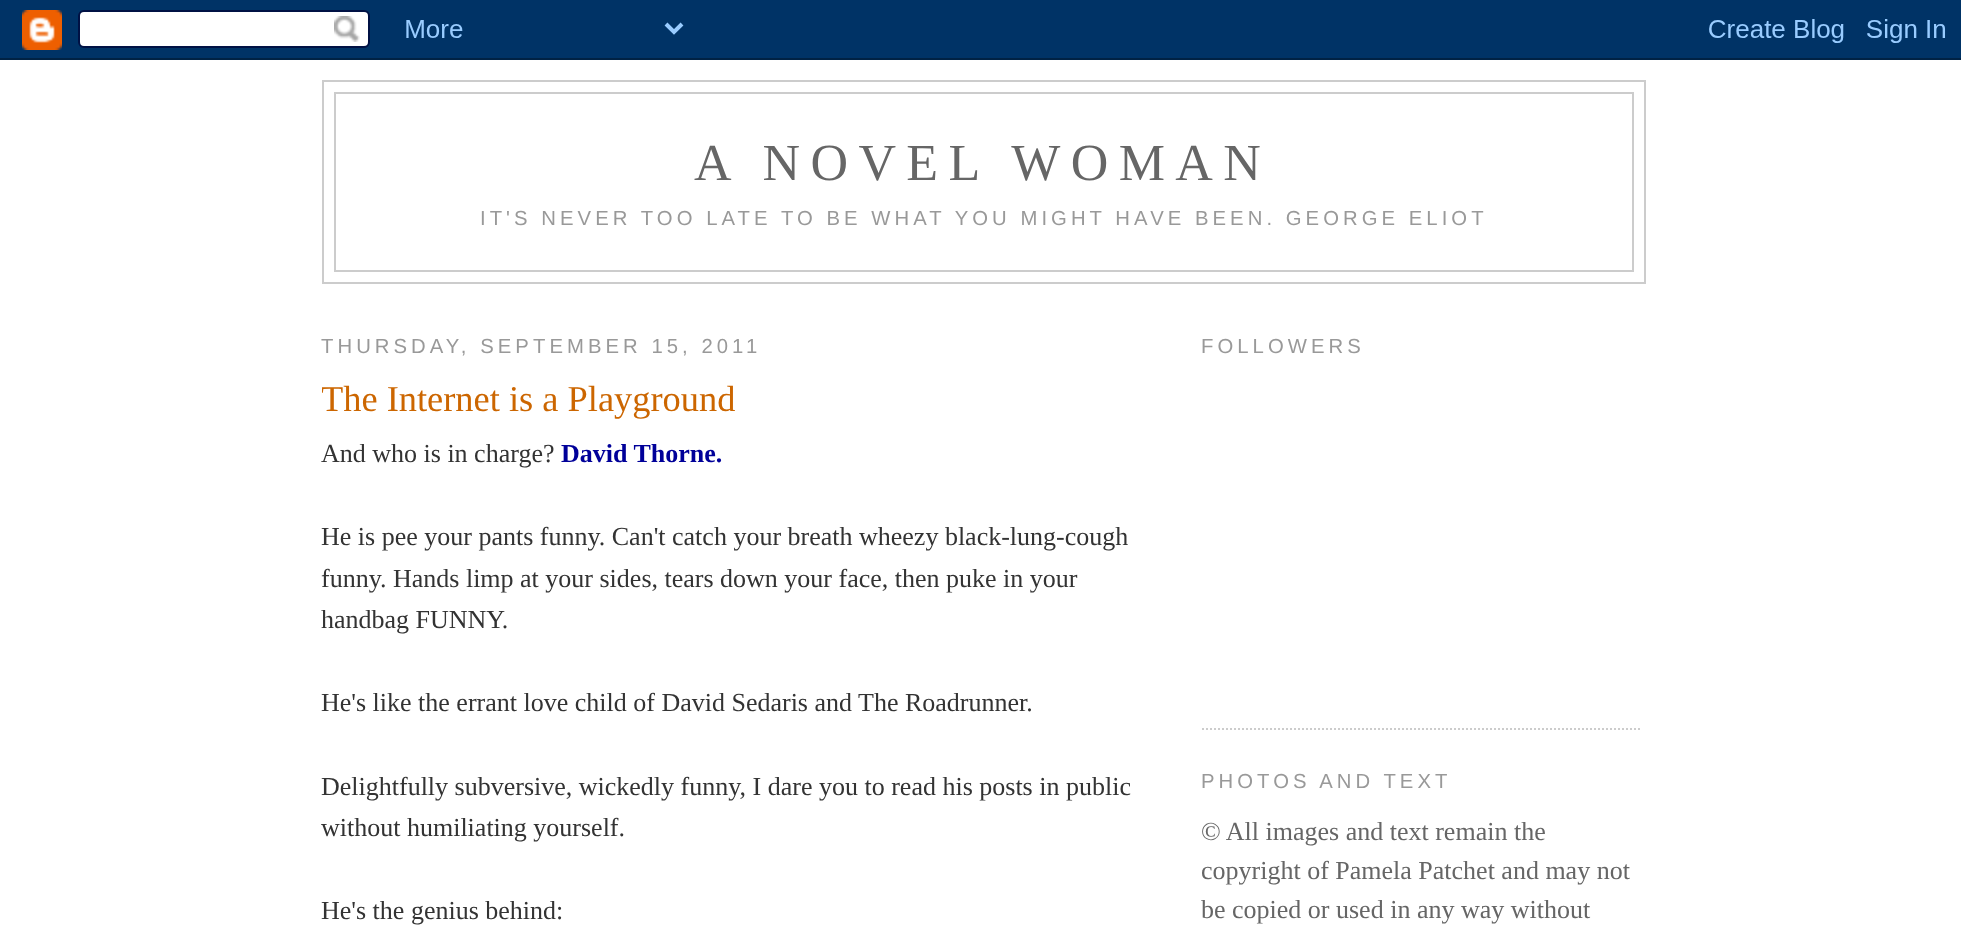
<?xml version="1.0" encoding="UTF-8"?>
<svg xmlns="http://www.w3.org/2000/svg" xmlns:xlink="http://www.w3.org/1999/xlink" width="1961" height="939">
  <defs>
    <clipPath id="clip1"><rect x="322" y="304" width="820" height="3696" /></clipPath>
  </defs>
  <rect width="100%" height="100%" fill="#ffffff" />
  <image x="0" y="0" width="1961" height="60" xlink:href="image1.png" />
  <rect x="323" y="81" width="1322" height="202" fill="none" stroke="#cccccc" stroke-width="2" />
  <rect x="335" y="93" width="1298" height="178" fill="none" stroke="#cccccc" stroke-width="2" />
  <path d="M 1202 729 h 440" fill="none" stroke="#cccccc" stroke-width="2" stroke-dasharray="2 2" />
  <text x="694" y="180" style="font-family: Liberation Serif; font-size: 52px; letter-spacing: 10.4px; fill: #666666">A NOVEL WOMAN</text>
  <text x="480" y="225" style="font-family: Liberation Sans; font-size: 20.3px; letter-spacing: 4.05px; fill: #999999">IT'S NEVER TOO LATE TO BE WHAT YOU MIGHT HAVE BEEN. GEORGE ELIOT</text>
  <text x="321" y="353" style="font-family: Liberation Sans; font-size: 20.3px; letter-spacing: 4.05px; fill: #999999">THURSDAY, SEPTEMBER 15, 2011</text>
  <g clip-path="url(#clip1)">
    <text x="321" y="411" style="font-family: Liberation Serif; font-size: 36.4px; fill: #cc6600">The Internet is a Playground</text>
  </g>
  <text x="321" y="462" style="font-family: Liberation Serif; font-size: 26px; fill: #333333">And who is in charge?</text>
  <text x="561" y="462" style="font-family: Liberation Serif; font-size: 26px; font-weight: bold; fill: #000099">David Thorne.</text>
  <text x="321" y="545" style="font-family: Liberation Serif; font-size: 26px; fill: #333333">He is pee your pants funny. Can't catch your breath wheezy black-lung-cough</text>
  <text x="321" y="587" style="font-family: Liberation Serif; font-size: 26px; fill: #333333">funny. Hands limp at your sides, tears down your face, then puke in your</text>
  <text x="321" y="628" style="font-family: Liberation Serif; font-size: 26px; fill: #333333">handbag FUNNY.</text>
  <text x="321" y="711" style="font-family: Liberation Serif; font-size: 26px; fill: #333333">He's like the errant love child of David Sedaris and The Roadrunner.</text>
  <text x="321" y="795" style="font-family: Liberation Serif; font-size: 26px; fill: #333333">Delightfully subversive, wickedly funny, I dare you to read his posts in public</text>
  <text x="321" y="836" style="font-family: Liberation Serif; font-size: 26px; fill: #333333">without humiliating yourself.</text>
  <text x="321" y="919" style="font-family: Liberation Serif; font-size: 26px; fill: #333333">He's the genius behind:</text>
  <text x="1201" y="353" style="font-family: Liberation Sans; font-size: 20.3px; letter-spacing: 4.05px; fill: #999999">FOLLOWERS</text>
  <text x="1201" y="788" style="font-family: Liberation Sans; font-size: 20.3px; letter-spacing: 4.05px; fill: #999999">PHOTOS AND TEXT</text>
  <text x="1201" y="840" style="font-family: Liberation Serif; font-size: 26px; fill: #666666">© All images and text remain the</text>
  <text x="1201" y="879" style="font-family: Liberation Serif; font-size: 26px; fill: #666666">copyright of Pamela Patchet and may not</text>
  <text x="1201" y="918" style="font-family: Liberation Serif; font-size: 26px; fill: #666666">be copied or used in any way without</text>
</svg>
